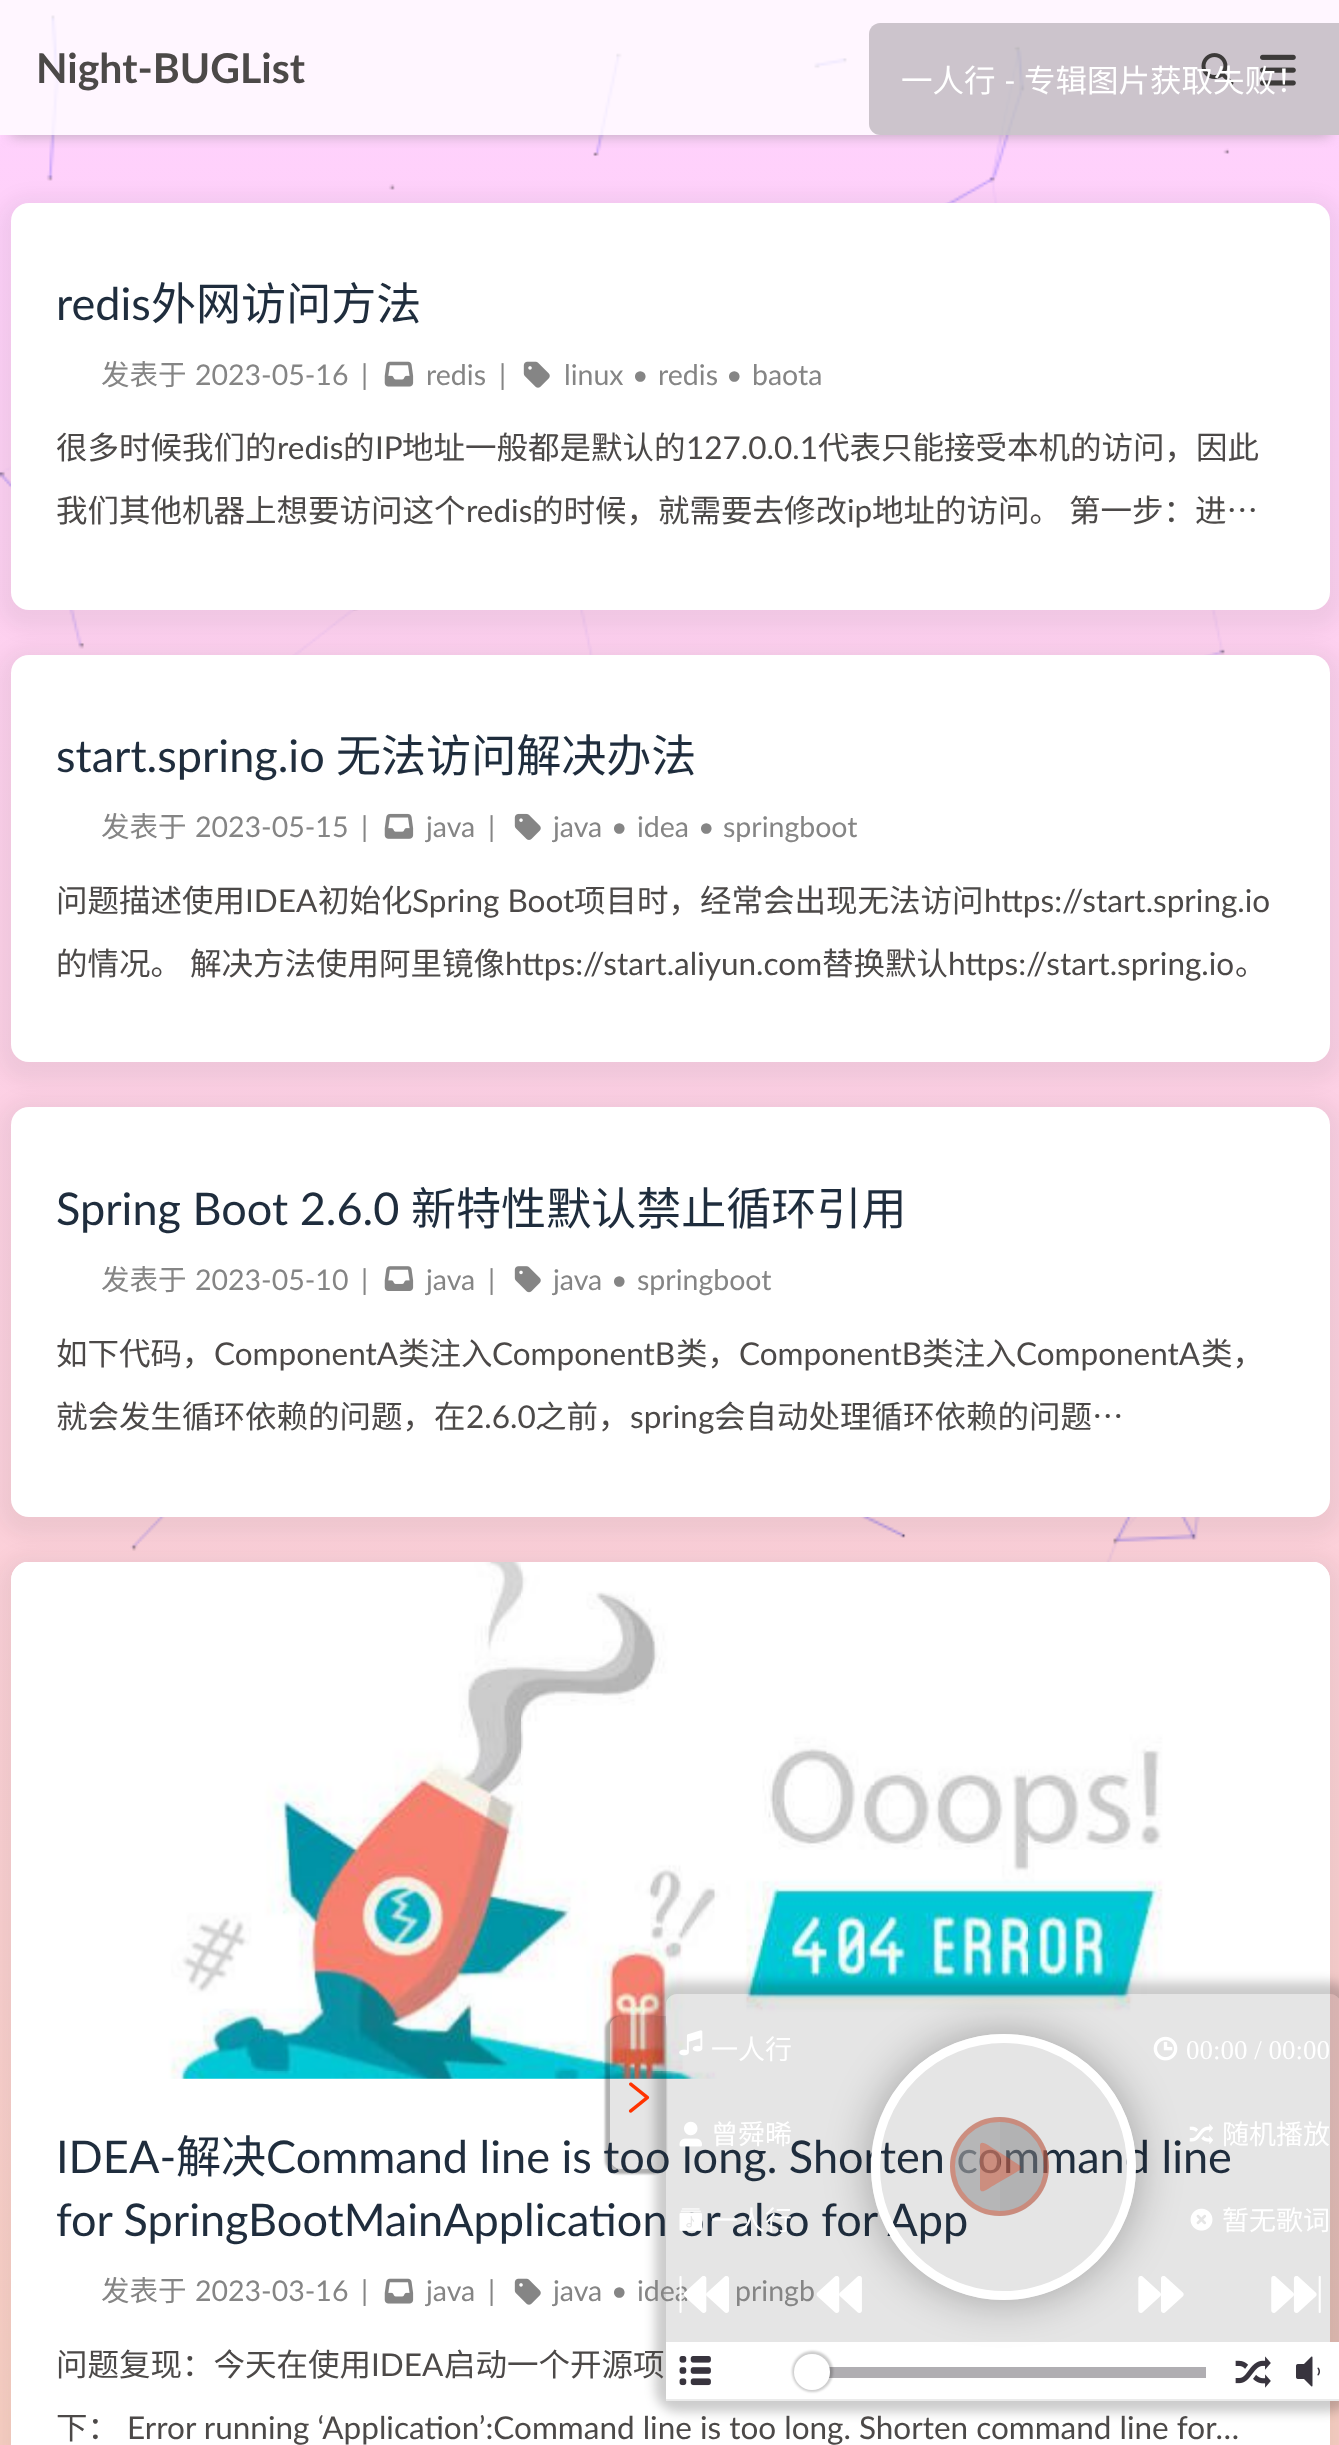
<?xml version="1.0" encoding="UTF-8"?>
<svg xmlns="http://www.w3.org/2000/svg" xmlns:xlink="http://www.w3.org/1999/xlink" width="1339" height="2445">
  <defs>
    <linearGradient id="g1" gradientUnits="userSpaceOnUse" x1="671" y1="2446" x2="671" y2="0"><stop offset="0" stop-color="#fad0c4" /><stop offset="0.01" stop-color="#fad0c4" /><stop offset="1" stop-color="#ffd1ff" /></linearGradient>
    <clipPath id="clip1"><rect x="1" y="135" width="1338" height="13" /></clipPath>
    <clipPath id="clip2"><path d="M 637 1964 h 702 v 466 h -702 z m 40 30 h 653 c 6 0 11 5 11 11 v 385 c 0 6 -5 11 -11 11 h -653 c -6 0 -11 -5 -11 -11 v -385 c 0 -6 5 -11 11 -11 z" clip-rule="evenodd" /></clipPath>
    <clipPath id="clip3"><path d="M 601 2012 h 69 v 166 h -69 z m 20 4 h 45 v 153 h -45 c -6 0 -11 -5 -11 -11 v -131 c 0 -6 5 -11 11 -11 z" clip-rule="evenodd" /></clipPath>
    <clipPath id="clip4"><path d="M 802 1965 h 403 v 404 h -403 z m 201.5 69 c 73 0 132.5 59.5 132.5 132.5 v 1 c 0 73 -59.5 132.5 -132.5 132.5 c -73 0 -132.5 -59.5 -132.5 -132.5 v -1 c 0 -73 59.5 -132.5 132.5 -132.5 z" clip-rule="evenodd" /></clipPath>
    <linearGradient id="g2" gradientUnits="userSpaceOnUse" x1="950" y1="2167" x2="1049" y2="2167"><stop offset="0.5" stop-color="#ffffff" stop-opacity="0.3" /><stop offset="0.5" stop-color="#ffffff" stop-opacity="0" /><stop offset="1" stop-color="#000000" stop-opacity="0" /></linearGradient>
  </defs>
  <rect width="100%" height="100%" fill="#ffffff" />
  <rect width="1339" height="2445" fill="url(#g1)" />
  <image x="0" y="15" width="1230" height="1547" xlink:href="image1.png" />
  <g clip-path="url(#clip1)">
    <rect x="11" y="23" width="1319" height="112" fill="#858585" fill-opacity="0.6" filter="blur(7px)" />
  </g>
  <rect width="1339" height="135" fill="#ffffff" fill-opacity="0.8" />
  <image x="1201" y="53" width="33" height="32" xlink:href="image2.png" />
  <image x="1260" y="54" width="36" height="32" xlink:href="image3.png" />
  <rect x="-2" y="196" width="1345" height="434" rx="32" fill="#07111b" fill-opacity="0.05" filter="blur(9px)" />
  <rect x="11" y="203" width="1319" height="407" rx="18" fill="#ffffff" />
  <image x="384" y="361" width="30" height="26" xlink:href="image4.png" />
  <image x="523" y="361" width="27" height="27" xlink:href="image5.png" />
  <rect x="-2" y="648" width="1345" height="434" rx="32" fill="#07111b" fill-opacity="0.05" filter="blur(9px)" />
  <rect x="11" y="655" width="1319" height="407" rx="18" fill="#ffffff" />
  <image x="384" y="813" width="30" height="26" xlink:href="image6.png" />
  <image x="514" y="813" width="27" height="27" xlink:href="image7.png" />
  <rect x="-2" y="1100" width="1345" height="437" rx="32" fill="#07111b" fill-opacity="0.05" filter="blur(9px)" />
  <rect x="11" y="1107" width="1319" height="410" rx="18" fill="#ffffff" />
  <image x="384" y="1266" width="30" height="25" xlink:href="image8.png" />
  <image x="514" y="1266" width="27" height="27" xlink:href="image9.png" />
  <rect x="-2" y="1555" width="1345" height="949" rx="32" fill="#07111b" fill-opacity="0.05" filter="blur(9px)" />
  <rect x="11" y="1562" width="1319" height="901" rx="18" fill="#ffffff" />
  <image x="11" y="1562" width="1319" height="517" xlink:href="image10.png" />
  <image x="384" y="2278" width="30" height="26" xlink:href="image4.png" />
  <image x="514" y="2278" width="27" height="27" xlink:href="image5.png" />
  <path d="M 880 23 h 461 v 112 h -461 c -6 0 -11 -5 -11 -11 v -90 c 0 -6 5 -11 11 -11 z" fill="#000000" fill-opacity="0.2" />
  <g clip-path="url(#clip2)">
    <rect x="655" y="1982" width="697" height="430" rx="23" fill="#000000" fill-opacity="0.2" filter="blur(5.5px)" />
  </g>
  <path d="M 677 1994 h 653 c 6 0 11 5 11 11 v 394 h -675 v -394 c 0 -6 5 -11 11 -11 z" fill="#000000" fill-opacity="0.1" />
  <g clip-path="url(#clip3)">
    <rect x="605" y="2016" width="61" height="158" rx="14" fill="#000000" fill-opacity="0.3" filter="blur(1px)" />
  </g>
  <path d="M 621 2016 h 45 v 153 h -45 c -6 0 -11 -5 -11 -11 v -131 c 0 -6 5 -11 11 -11 z" fill="#000000" fill-opacity="0.1" />
  <image x="628" y="2082" width="22" height="31" xlink:href="image11.png" />
  <image x="679" y="2030" width="24" height="26" xlink:href="image12.png" />
  <image x="1153" y="2036" width="25" height="25" xlink:href="image13.png" />
  <image x="1190" y="2208" width="23" height="23" xlink:href="image17.png" />
  <image x="1271" y="2276" width="50" height="37" xlink:href="image21.png" />
  <rect x="666" y="2342" width="673" height="57" fill="#ffffff" />
  <image x="679" y="2356" width="32" height="30" xlink:href="image22.png" />
  <rect x="829" y="2367" width="377" height="11" fill="#b0aeb2" />
  <rect x="792" y="2351" width="41" height="41" rx="20.5" fill="#000000" fill-opacity="0.2" filter="blur(1px)" />
  <circle cx="812" cy="2372" r="18" fill="#ffffff" />
  <image x="1235" y="2356" width="36" height="32" xlink:href="image23.png" />
  <image x="1296" y="2356" width="24" height="31" xlink:href="image24.png" />
  <rect x="666" y="2399" width="673" height="2" fill="#ebebeb" />
  <text x="36" y="83" style="font-family: Lato; font-size: 41px; font-weight: bold; fill: #4c4948">Night-BUGList</text>
  <text x="56" y="320" style="font-family: Lato; font-size: 45.05px; fill: #1f2d3d">redis</text>
  <text x="151" y="320" style="font-family: Noto Sans CJK SC; font-size: 45.05px; fill: #1f2d3d">外网访问方法</text>
  <text x="101" y="385" style="font-family: Noto Sans CJK SC; font-size: 28.5px; fill: #858585">发表于</text>
  <text x="195" y="385" style="font-family: Lato; font-size: 28.5px; fill: #858585">2023-05-16</text>
  <text x="361" y="385" style="font-family: Lato; font-size: 28.5px; fill: #858585">|</text>
  <text x="426" y="385" style="font-family: Lato; font-size: 28.5px; fill: #858585">redis</text>
  <text x="499" y="385" style="font-family: Lato; font-size: 28.5px; fill: #858585">|</text>
  <text x="564" y="385" style="font-family: Lato; font-size: 28.5px; fill: #858585">linux</text>
  <text x="632" y="385" style="font-family: Lato; font-size: 28.5px; fill: #858585">•</text>
  <text x="658" y="385" style="font-family: Lato; font-size: 28.5px; fill: #858585">redis</text>
  <text x="726" y="385" style="font-family: Lato; font-size: 28.5px; fill: #858585">•</text>
  <text x="752" y="385" style="font-family: Lato; font-size: 28.5px; fill: #858585">baota</text>
  <text x="56" y="459" style="font-family: Noto Sans CJK SC; font-size: 31.5px; fill: #4c4948">很多时候我们的</text>
  <text x="277" y="459" style="font-family: Lato; font-size: 31.5px; fill: #4c4948">redis</text>
  <text x="343" y="459" style="font-family: Noto Sans CJK SC; font-size: 31.5px; fill: #4c4948">的</text>
  <text x="375" y="459" style="font-family: Lato; font-size: 31.5px; fill: #4c4948">IP</text>
  <text x="402" y="459" style="font-family: Noto Sans CJK SC; font-size: 31.5px; fill: #4c4948">地址一般都是默认的</text>
  <text x="686" y="459" style="font-family: Lato; font-size: 31.5px; fill: #4c4948">127.0.0.1</text>
  <text x="818" y="459" style="font-family: Noto Sans CJK SC; font-size: 31.5px; fill: #4c4948">代表只能接受本机的访问，因此</text>
  <text x="56" y="522" style="font-family: Noto Sans CJK SC; font-size: 31.5px; fill: #4c4948">我们其他机器上想要访问这个</text>
  <text x="466" y="522" style="font-family: Lato; font-size: 31.5px; fill: #4c4948">redis</text>
  <text x="532" y="522" style="font-family: Noto Sans CJK SC; font-size: 31.5px; fill: #4c4948">的时候，就需要去修改</text>
  <text x="847" y="522" style="font-family: Lato; font-size: 31.5px; fill: #4c4948">ip</text>
  <text x="872" y="522" word-spacing="1" style="font-family: Noto Sans CJK SC; font-size: 31.5px; fill: #4c4948">地址的访问。 第一步：进…</text>
  <text x="56" y="772" style="font-family: Lato; font-size: 45.05px; fill: #1f2d3d">start.spring.io</text>
  <text x="336" y="772" style="font-family: Noto Sans CJK SC; font-size: 45.05px; fill: #1f2d3d">无法访问解决办法</text>
  <text x="101" y="837" style="font-family: Noto Sans CJK SC; font-size: 28.5px; fill: #858585">发表于</text>
  <text x="195" y="837" style="font-family: Lato; font-size: 28.5px; fill: #858585">2023-05-15</text>
  <text x="361" y="837" style="font-family: Lato; font-size: 28.5px; fill: #858585">|</text>
  <text x="426" y="837" style="font-family: Lato; font-size: 28.5px; fill: #858585">java</text>
  <text x="488" y="837" style="font-family: Lato; font-size: 28.5px; fill: #858585">|</text>
  <text x="553" y="837" style="font-family: Lato; font-size: 28.5px; fill: #858585">java</text>
  <text x="611" y="837" style="font-family: Lato; font-size: 28.5px; fill: #858585">•</text>
  <text x="637" y="837" style="font-family: Lato; font-size: 28.5px; fill: #858585">idea</text>
  <text x="698" y="837" style="font-family: Lato; font-size: 28.5px; fill: #858585">•</text>
  <text x="723" y="837" style="font-family: Lato; font-size: 28.5px; fill: #858585">springboot</text>
  <text x="56" y="912" style="font-family: Noto Sans CJK SC; font-size: 31.5px; fill: #4c4948">问题描述使用</text>
  <text x="245" y="912" style="font-family: Lato; font-size: 31.5px; fill: #4c4948">IDEA</text>
  <text x="318" y="912" style="font-family: Noto Sans CJK SC; font-size: 31.5px; fill: #4c4948">初始化</text>
  <text x="412" y="912" style="font-family: Lato; font-size: 31.5px; fill: #4c4948">Spring Boot</text>
  <text x="574" y="912" style="font-family: Noto Sans CJK SC; font-size: 31.5px; fill: #4c4948">项目时，经常会出现无法访问</text>
  <text x="984" y="912" style="font-family: Lato; font-size: 31.5px; fill: #4c4948">https://start.spring.io</text>
  <text x="56" y="975" word-spacing="1" style="font-family: Noto Sans CJK SC; font-size: 31.5px; fill: #4c4948">的情况。 解决方法使用阿里镜像</text>
  <text x="505" y="975" style="font-family: Lato; font-size: 31.5px; fill: #4c4948">https://start.aliyun.com</text>
  <text x="822" y="975" style="font-family: Noto Sans CJK SC; font-size: 31.5px; fill: #4c4948">替换默认</text>
  <text x="948" y="975" style="font-family: Lato; font-size: 31.5px; fill: #4c4948">https://start.spring.io</text>
  <text x="1235" y="975" style="font-family: Noto Sans CJK SC; font-size: 31.5px; fill: #4c4948">。</text>
  <text x="56" y="1225" style="font-family: Lato; font-size: 45.05px; fill: #1f2d3d">Spring Boot 2.6.0</text>
  <text x="411" y="1225" style="font-family: Noto Sans CJK SC; font-size: 45.05px; fill: #1f2d3d">新特性默认禁止循环引用</text>
  <text x="101" y="1290" style="font-family: Noto Sans CJK SC; font-size: 28.5px; fill: #858585">发表于</text>
  <text x="195" y="1290" style="font-family: Lato; font-size: 28.5px; fill: #858585">2023-05-10</text>
  <text x="361" y="1290" style="font-family: Lato; font-size: 28.5px; fill: #858585">|</text>
  <text x="426" y="1290" style="font-family: Lato; font-size: 28.5px; fill: #858585">java</text>
  <text x="488" y="1290" style="font-family: Lato; font-size: 28.5px; fill: #858585">|</text>
  <text x="553" y="1290" style="font-family: Lato; font-size: 28.5px; fill: #858585">java</text>
  <text x="611" y="1290" style="font-family: Lato; font-size: 28.5px; fill: #858585">•</text>
  <text x="637" y="1290" style="font-family: Lato; font-size: 28.5px; fill: #858585">springboot</text>
  <text x="56" y="1365" style="font-family: Noto Sans CJK SC; font-size: 31.5px; fill: #4c4948">如下代码，</text>
  <text x="214" y="1365" style="font-family: Lato; font-size: 31.5px; fill: #4c4948">ComponentA</text>
  <text x="398" y="1365" style="font-family: Noto Sans CJK SC; font-size: 31.5px; fill: #4c4948">类注入</text>
  <text x="492" y="1365" style="font-family: Lato; font-size: 31.5px; fill: #4c4948">ComponentB</text>
  <text x="676" y="1365" style="font-family: Noto Sans CJK SC; font-size: 31.5px; fill: #4c4948">类，</text>
  <text x="739" y="1365" style="font-family: Lato; font-size: 31.5px; fill: #4c4948">ComponentB</text>
  <text x="922" y="1365" style="font-family: Noto Sans CJK SC; font-size: 31.5px; fill: #4c4948">类注入</text>
  <text x="1016" y="1365" style="font-family: Lato; font-size: 31.5px; fill: #4c4948">ComponentA</text>
  <text x="1201" y="1365" style="font-family: Noto Sans CJK SC; font-size: 31.5px; fill: #4c4948">类，</text>
  <text x="56" y="1428" style="font-family: Noto Sans CJK SC; font-size: 31.5px; fill: #4c4948">就会发生循环依赖的问题，在</text>
  <text x="466" y="1428" style="font-family: Lato; font-size: 31.5px; fill: #4c4948">2.6.0</text>
  <text x="535" y="1428" style="font-family: Noto Sans CJK SC; font-size: 31.5px; fill: #4c4948">之前，</text>
  <text x="630" y="1428" style="font-family: Lato; font-size: 31.5px; fill: #4c4948">spring</text>
  <text x="714" y="1428" style="font-family: Noto Sans CJK SC; font-size: 31.5px; fill: #4c4948">会自动处理循环依赖的问题…</text>
  <text x="56" y="2173" style="font-family: Lato; font-size: 45.05px; fill: #1f2d3d">IDEA-</text>
  <text x="176" y="2173" style="font-family: Noto Sans CJK SC; font-size: 45.05px; fill: #1f2d3d">解决</text>
  <text x="266" y="2173" style="font-family: Lato; font-size: 45.05px; fill: #1f2d3d">Command line is too long. Shorten command line</text>
  <text x="56" y="2236" style="font-family: Lato; font-size: 45.05px; fill: #1f2d3d">for SpringBootMainApplication or also for App</text>
  <text x="101" y="2301" style="font-family: Noto Sans CJK SC; font-size: 28.5px; fill: #858585">发表于</text>
  <text x="195" y="2301" style="font-family: Lato; font-size: 28.5px; fill: #858585">2023-03-16</text>
  <text x="361" y="2301" style="font-family: Lato; font-size: 28.5px; fill: #858585">|</text>
  <text x="426" y="2301" style="font-family: Lato; font-size: 28.5px; fill: #858585">java</text>
  <text x="488" y="2301" style="font-family: Lato; font-size: 28.5px; fill: #858585">|</text>
  <text x="553" y="2301" style="font-family: Lato; font-size: 28.5px; fill: #858585">java</text>
  <text x="611" y="2301" style="font-family: Lato; font-size: 28.5px; fill: #858585">•</text>
  <text x="637" y="2301" style="font-family: Lato; font-size: 28.5px; fill: #858585">idea</text>
  <text x="735" y="2301" style="font-family: Lato; font-size: 28.5px; fill: #858585">pringb</text>
  <text x="56" y="2376" style="font-family: Noto Sans CJK SC; font-size: 31.5px; fill: #4c4948">问题复现：今天在使用</text>
  <text x="371" y="2376" style="font-family: Lato; font-size: 31.5px; fill: #4c4948">IDEA</text>
  <text x="444" y="2376" style="font-family: Noto Sans CJK SC; font-size: 31.5px; fill: #4c4948">启动一个开源项</text>
  <text x="56" y="2439" style="font-family: Noto Sans CJK SC; font-size: 31.5px; fill: #4c4948">下：</text>
  <text x="127" y="2439" style="font-family: Lato; font-size: 31.5px; fill: #4c4948">Error running ‘Application’:Command line is too long. Shorten command line for…</text>
  <text x="901" y="92" style="font-family: Noto Sans CJK SC; font-size: 31.5px; fill: #ffffff">一人行</text>
  <text x="1004" y="92" style="font-family: Lato; font-size: 31.5px; fill: #ffffff">-</text>
  <text x="1024" y="92" style="font-family: Noto Sans CJK SC; font-size: 31.5px; fill: #ffffff">专辑图片获取失败！</text>
  <text x="711" y="2059" style="font-family: Noto Sans CJK SC; font-size: 27px; fill: #ffffff">一人行</text>
  <text x="1186" y="2059" style="font-family: Liberation Serif; font-size: 27px; fill: #ffffff">00:00 / 00:00</text>
  <image x="679" y="2121" width="23" height="26" xlink:href="image14.png" />
  <text x="711" y="2144" style="font-family: Noto Sans CJK SC; font-size: 27px; fill: #ffffff">曾舜晞</text>
  <image x="1189" y="2124" width="24" height="20" xlink:href="image15.png" />
  <g clip-path="url(#clip4)">
    <rect x="871" y="2034" width="265" height="266" rx="132.5" fill="#000000" fill-opacity="0.3" filter="blur(22.5px)" />
  </g>
  <rect x="875.5" y="2038.5" width="256" height="257" rx="128" fill="none" stroke="#ffffff" stroke-width="9" />
  <text x="1222" y="2144" style="font-family: Noto Sans CJK SC; font-size: 27px; fill: #ffffff">随机播放</text>
  <image x="679" y="2208" width="23" height="23" xlink:href="image16.png" />
  <text x="711" y="2230" style="font-family: Noto Sans CJK SC; font-size: 27px; fill: #ffffff">一人行</text>
  <text x="1222" y="2230" style="font-family: Noto Sans CJK SC; font-size: 27px; fill: #ffffff">暂无歌词</text>
  <circle cx="999.5" cy="2166.5" r="49.5" fill="#ffffff" fill-opacity="0.3" />
  <circle cx="999.5" cy="2166.5" r="49.5" fill="url(#g2)" />
  <circle cx="999.5" cy="2166.5" r="49.5" fill="#2c2a30" fill-opacity="0.3" />
  <circle cx="999.5" cy="2166.5" r="47" fill="none" stroke="#ff3300" stroke-opacity="0.3" stroke-width="5" />
  <path d="M 1019 2165 l -23 -15 c -7 -4 -15 -11 -16 -5 v 44 c 1 6 9 -1 16 -5 l 24 -14 c 1 -2 1 -4 -1 -5 z" fill="#ff3300" fill-opacity="0.3" />
  <image x="679" y="2276" width="50" height="37" xlink:href="image18.png" />
  <image x="816" y="2276" width="46" height="37" xlink:href="image19.png" />
  <image x="1138" y="2276" width="46" height="37" xlink:href="image20.png" />
</svg>
